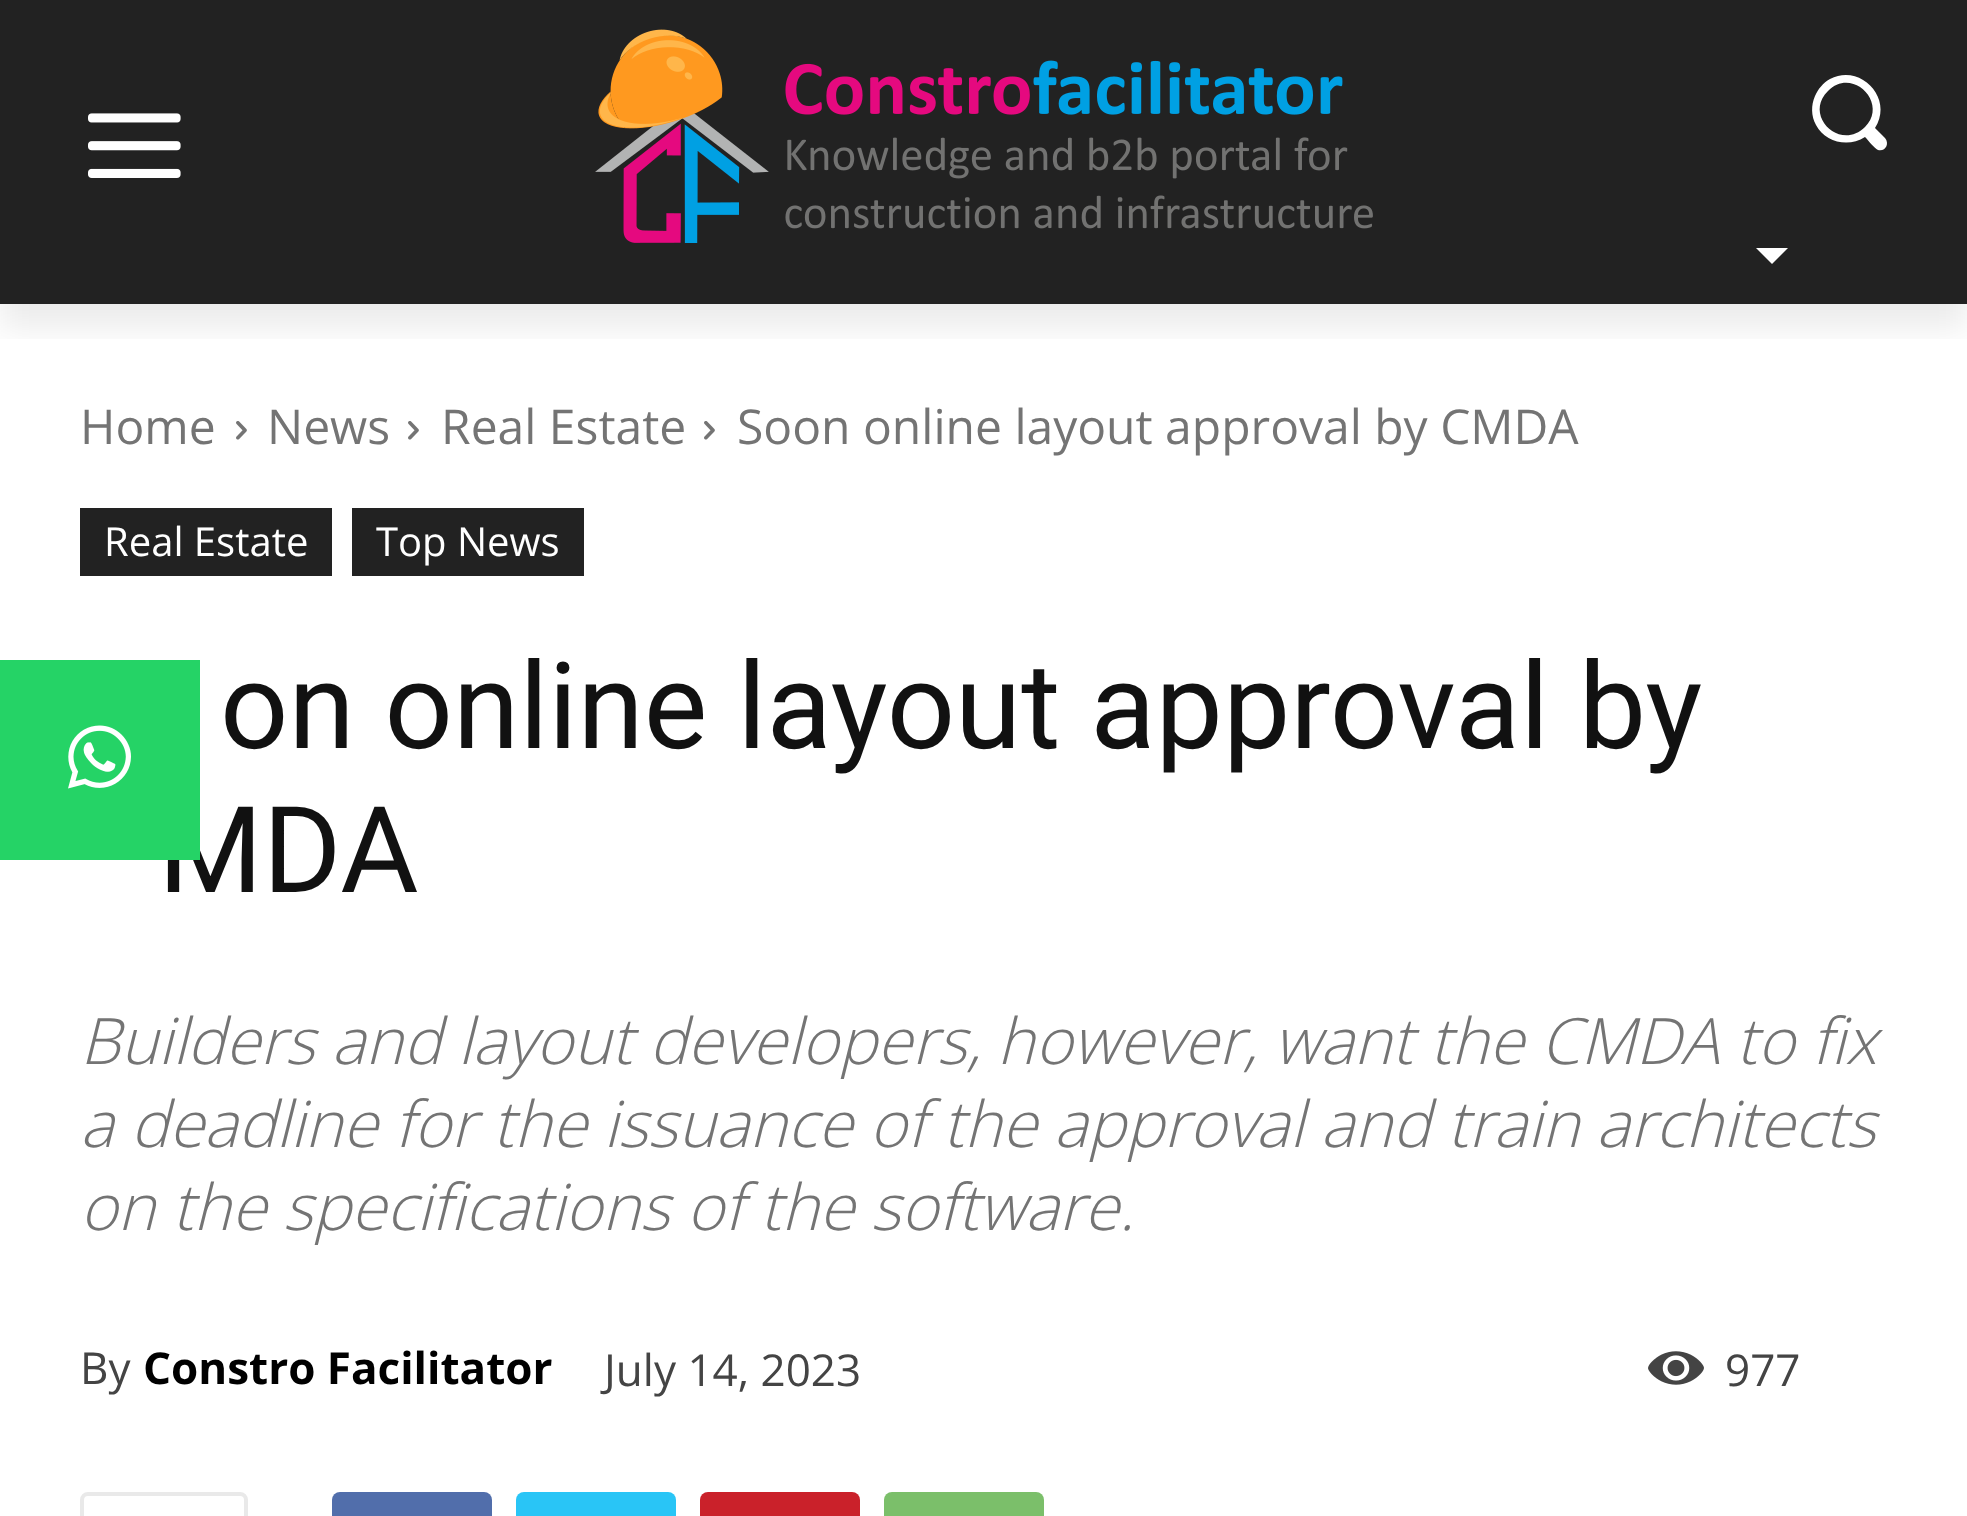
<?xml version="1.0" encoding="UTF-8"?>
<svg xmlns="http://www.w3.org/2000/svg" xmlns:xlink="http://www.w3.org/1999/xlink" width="1967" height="1516">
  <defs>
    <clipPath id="clip1"><rect x="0" y="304" width="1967" height="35" /></clipPath>
  </defs>
  <rect width="100%" height="100%" fill="#ffffff" />
  <rect width="1967" height="304" fill="#222222" />
  <image x="88" y="113" width="93" height="65" xlink:href="image1.png" />
  <image x="595" y="29" width="778" height="214" xlink:href="image2.png" />
  <path d="M 1885 138 l -10 -10 c 19 -29 -14 -65 -45 -49 c -7 4 -12 10 -15 17 c -4 9 -4 20 1 29 c 9 17 32 23 49 12 c 3 3 9 11 13 13 c 7 2 12 -6 7 -12 z m -20 -11 c -25 25 -62 -12 -37 -36 c 24 -25 61 12 37 36 z" fill="#ffffff" />
  <path d="M 1756 248 h 32 l -16 16 z" fill="#ffffff" />
  <g clip-path="url(#clip1)">
    <rect y="24" width="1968" height="304" fill="#000000" fill-opacity="0.08" filter="blur(16px)" />
  </g>
  <image x="236" y="421" width="11" height="19" xlink:href="image3.png" />
  <image x="408" y="421" width="11" height="19" xlink:href="image3.png" />
  <image x="704" y="421" width="11" height="19" xlink:href="image3.png" />
  <rect x="80" y="508" width="252" height="68" fill="#222222" />
  <rect x="352" y="508" width="232" height="68" fill="#222222" />
  <image x="1648" y="1351" width="56" height="34" xlink:href="image4.png" />
  <rect x="82" y="1494" width="164" height="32" rx="6" fill="none" stroke="#e9e9e9" stroke-width="4" />
  <rect x="332" y="1492" width="160" height="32" rx="8" fill="#516eab" />
  <rect x="516" y="1492" width="160" height="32" rx="8" fill="#29c5f6" />
  <rect x="700" y="1492" width="160" height="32" rx="8" fill="#ca212a" />
  <rect x="884" y="1492" width="160" height="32" rx="8" fill="#7bbf6a" />
  <text x="80" y="444" style="font-family: Open Sans; font-size: 48px; fill: #747474">Home</text>
  <text x="267" y="444" style="font-family: Open Sans; font-size: 48px; fill: #747474">News</text>
  <text x="441" y="444" style="font-family: Open Sans; font-size: 48px; fill: #747474">Real Estate</text>
  <text x="737" y="444" style="font-family: Open Sans; font-size: 48px; fill: #747474">Soon online layout approval by CMDA</text>
  <text x="104" y="556" style="font-family: Open Sans; font-size: 40px; fill: #ffffff">Real Estate</text>
  <text x="376" y="556" style="font-family: Open Sans; font-size: 40px; fill: #ffffff">Top News</text>
  <text x="220" y="748" style="font-family: Roboto; font-size: 120px; fill: #111111">on online layout approval by</text>
  <text x="158" y="892" style="font-family: Roboto; font-size: 120px; fill: #111111">MDA</text>
  <text x="80" y="1064" style="font-family: Open Sans; font-size: 64px; font-weight: 300; font-style: italic; fill: #747474">Builders and layout developers, however, want the CMDA to fix</text>
  <text x="80" y="1147" style="font-family: Open Sans; font-size: 64px; font-weight: 300; font-style: italic; fill: #747474">a deadline for the issuance of the approval and train architects</text>
  <text x="80" y="1230" style="font-family: Open Sans; font-size: 64px; font-weight: 300; font-style: italic; fill: #747474">on the specifications of the software.</text>
  <text x="80" y="1384" style="font-family: Open Sans; font-size: 44px; fill: #444444">By</text>
  <text x="143" y="1384" style="font-family: Open Sans; font-size: 44px; font-weight: bold; fill: #000000">Constro Facilitator</text>
  <text x="604" y="1386" style="font-family: Open Sans; font-size: 44px; fill: #444444">July 14, 2023</text>
  <text x="1725" y="1386" style="font-family: Open Sans; font-size: 44px; fill: #444444">977</text>
  <rect y="660" width="200" height="200" fill="#25d366" />
  <image x="68" y="725" width="63" height="64" xlink:href="image5.png" />
</svg>
